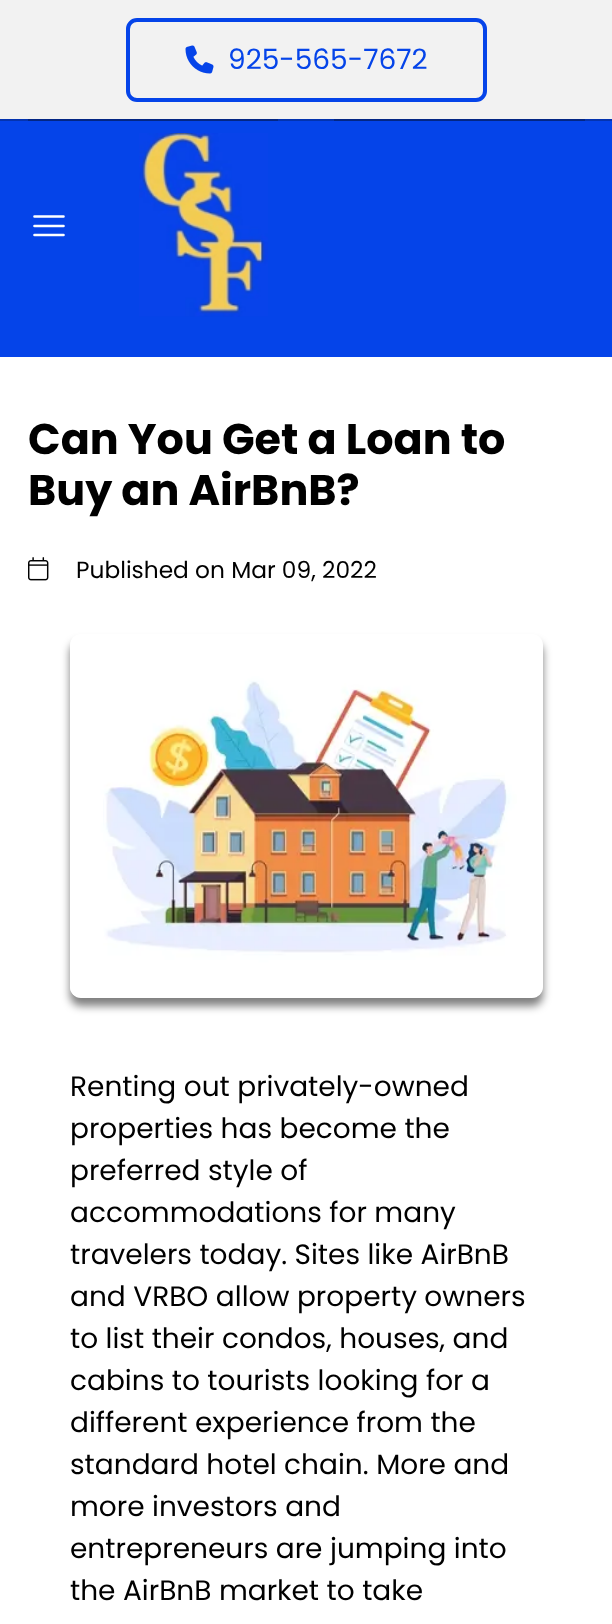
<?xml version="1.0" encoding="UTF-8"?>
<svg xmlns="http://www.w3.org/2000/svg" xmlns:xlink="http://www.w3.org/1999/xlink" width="612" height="1624">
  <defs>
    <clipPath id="clip1"><path d="M 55 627 h 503 v 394 h -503 z m 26 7 h 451 c 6 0 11 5 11 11 v 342 c 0 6 -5 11 -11 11 h -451 c -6 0 -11 -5 -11 -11 v -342 c 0 -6 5 -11 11 -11 z" clip-rule="evenodd" /></clipPath>
  </defs>
  <rect width="100%" height="100%" fill="#ffffff" />
  <rect y="119" width="612" height="238" fill="#0544e9" />
  <path d="M -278 2 v 119 h 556 v -2 h -250 v -117 z" fill="#0433af" />
  <path d="M 334 119 v 2 h 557 v -119 h -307 v 117 z" fill="#0433af" />
  <path d="M 28 119 v 2 h 557 v -119 h -1 v 117 z" fill="#000000" fill-opacity="0.25" />
  <rect width="28" height="119" fill="#f2f2f2" />
  <rect x="28" width="584" height="119" fill="#f2f2f2" />
  <rect x="128" y="20" width="357" height="80" rx="9" fill="none" stroke="#0544e9" stroke-width="4" />
  <image x="185" y="45" width="29" height="29" xlink:href="image1.png" />
  <path d="M 34.5 216.5 h 29 m -29 9.5 h 29 m -29 9 h 29" fill="none" stroke="#ffffff" stroke-width="2.6" stroke-linecap="round" stroke-linejoin="round" />
  <image x="139" y="133" width="129" height="184" xlink:href="image2.png" />
  <image x="28" y="557" width="21" height="24" xlink:href="image3.png" />
  <g clip-path="url(#clip1)">
    <rect x="70" y="642" width="473" height="364" rx="11" fill="#000000" fill-opacity="0.5" filter="blur(4.5px)" />
  </g>
  <image x="70" y="645" width="473" height="353" xlink:href="image4.png" />
  <text x="228" y="69" style="font-family: Poppins; font-size: 28px; fill: #0544e9">925-565-7672</text>
  <text x="28" y="454" style="font-family: Poppins; font-size: 42.9px; font-weight: bold; fill: #000000">Can You Get a Loan to</text>
  <text x="28" y="505" style="font-family: Poppins; font-size: 42.9px; font-weight: bold; fill: #000000">Buy an AirBnB?</text>
  <text x="76" y="578" style="font-family: Poppins; font-size: 23.3px; fill: #000000">Published on Mar 09, 2022</text>
  <text x="70" y="1096" style="font-family: Poppins; font-size: 28px; fill: #000000">Renting out privately-owned</text>
  <text x="70" y="1138" style="font-family: Poppins; font-size: 28px; fill: #000000">properties has become the</text>
  <text x="70" y="1180" style="font-family: Poppins; font-size: 28px; fill: #000000">preferred style of</text>
  <text x="70" y="1222" style="font-family: Poppins; font-size: 28px; fill: #000000">accommodations for many</text>
  <text x="70" y="1264" style="font-family: Poppins; font-size: 28px; fill: #000000">travelers today. Sites like AirBnB</text>
  <text x="70" y="1306" style="font-family: Poppins; font-size: 28px; fill: #000000">and VRBO allow property owners</text>
  <text x="70" y="1348" style="font-family: Poppins; font-size: 28px; fill: #000000">to list their condos, houses, and</text>
  <text x="70" y="1390" style="font-family: Poppins; font-size: 28px; fill: #000000">cabins to tourists looking for a</text>
  <text x="70" y="1432" style="font-family: Poppins; font-size: 28px; fill: #000000">different experience from the</text>
  <text x="70" y="1474" style="font-family: Poppins; font-size: 28px; fill: #000000">standard hotel chain. More and</text>
  <text x="70" y="1516" style="font-family: Poppins; font-size: 28px; fill: #000000">more investors and</text>
  <text x="70" y="1558" style="font-family: Poppins; font-size: 28px; fill: #000000">entrepreneurs are jumping into</text>
  <text x="70" y="1600" style="font-family: Poppins; font-size: 28px; fill: #000000">the AirBnB market to take</text>
</svg>
